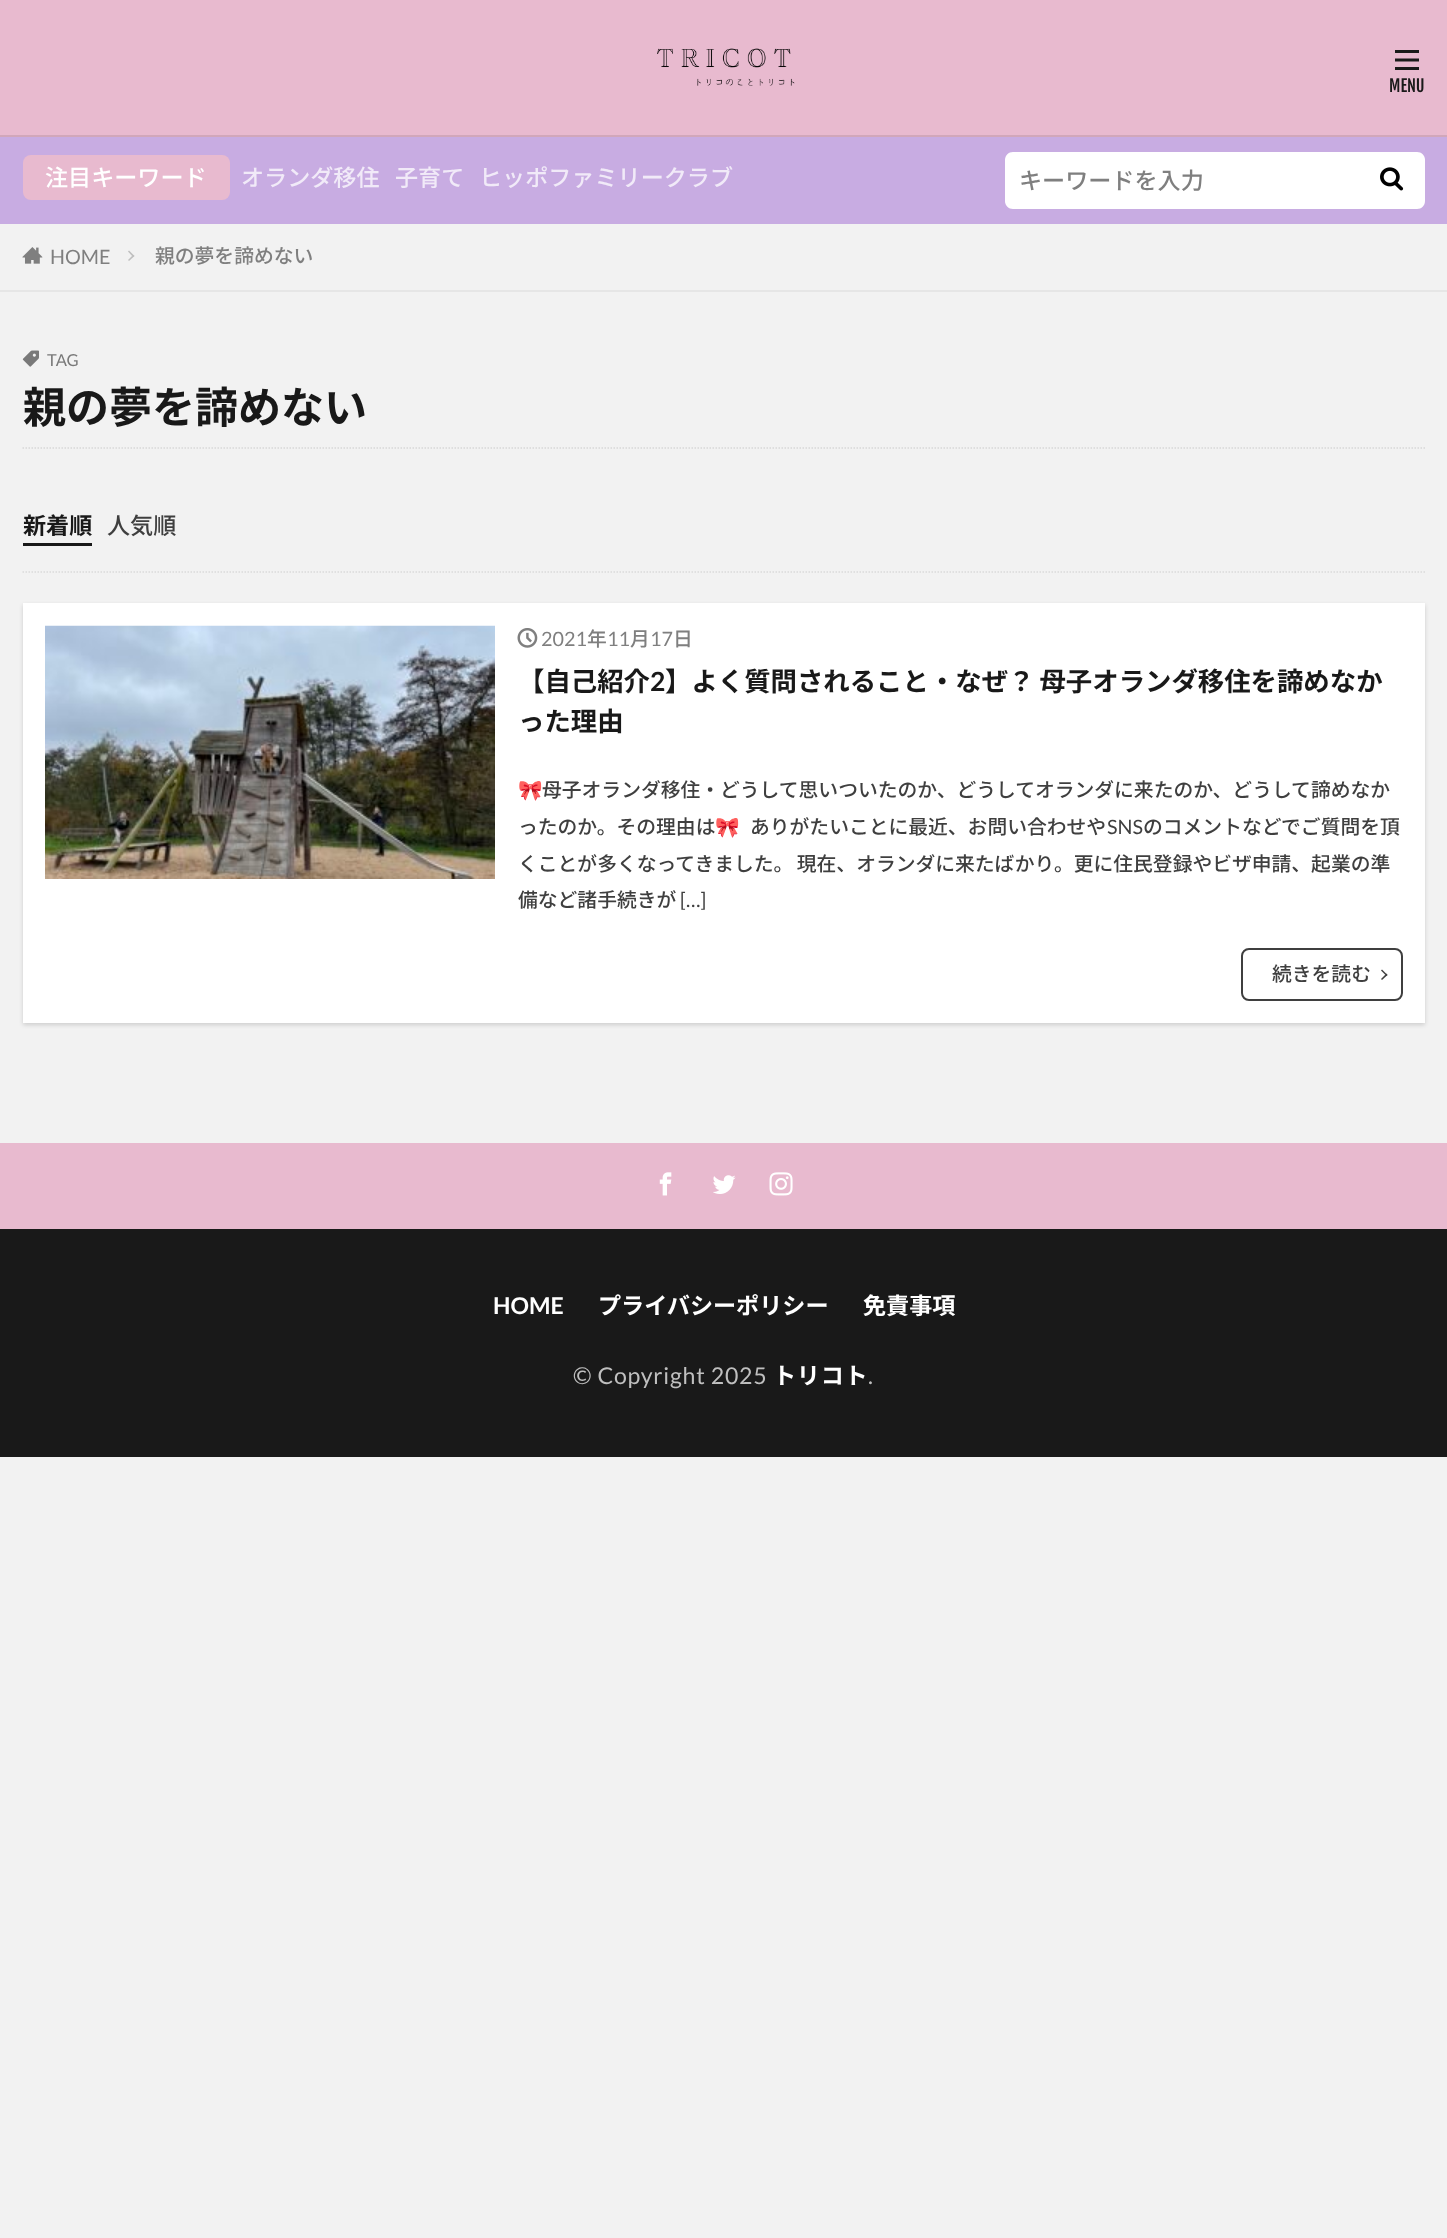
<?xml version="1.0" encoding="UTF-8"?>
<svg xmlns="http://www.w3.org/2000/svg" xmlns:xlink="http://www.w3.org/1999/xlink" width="1447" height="2238">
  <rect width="100%" height="100%" fill="#f2f2f2" />
  <rect width="1447" height="135" fill="#e8bacf" />
  <rect y="135" width="1447" height="2" fill="#d1a7ba" />
  <image x="657" y="48" width="138" height="38" xlink:href="image1.png" />
  <image x="1395" y="50" width="24" height="20" xlink:href="image2.png" />
  <rect y="137" width="1447" height="87" fill="#c8ace2" />
  <rect x="23" y="155" width="207" height="45" rx="8" fill="#e8bacf" />
  <path d="M 1013 152 h 346 v 57 h -346 c -4.5 0 -8 -3.5 -8 -8 v -41 c 0 -4.5 3.5 -8 8 -8 z" fill="#ffffff" />
  <path d="M 1359 152 h 58 c 4.5 0 8 3.5 8 8 v 41 c 0 4.5 -3.5 8 -8 8 h -58 z" fill="#ffffff" />
  <image x="1380" y="167" width="24" height="24" xlink:href="image3.png" />
  <rect y="290" width="1447" height="2" fill="#e6e6e6" />
  <image x="22" y="247" width="21" height="17" xlink:href="image4.png" />
  <path d="M 129 250.5 l 5.5 5.5 l -1.5 1 l -5 -5.5 z" fill="#bfbfbf" />
  <path d="M 133 255 l 1.5 1 l -5.5 5 l -1 -1 z" fill="#bfbfbf" />
  <image x="22" y="350" width="17" height="17" xlink:href="image5.png" />
  <path d="M 22.5 448 h 1402.5" fill="none" stroke="#d8d8d8" stroke-width="1.5" stroke-dasharray="1.5 1.5" />
  <path d="M 22.5 572 h 1402.5" fill="none" stroke="#dadada" stroke-width="1.5" stroke-dasharray="1.5 1.5" />
  <rect x="23" y="543" width="69" height="3" fill="#191919" />
  <rect x="23" y="605" width="1402" height="420" fill="#000000" fill-opacity="0.15" filter="blur(2px)" />
  <rect x="23" y="603" width="1402" height="420" fill="#ffffff" />
  <image x="45" y="625" width="450" height="254" xlink:href="image6.png" />
  <image x="517" y="628" width="21" height="20" xlink:href="image7.png" />
  <rect x="1242" y="949" width="160" height="51" rx="7" fill="none" stroke="#3f3f3f" stroke-width="2" />
  <path d="M 1382 969.5 l 5.5 5.5 l -1 1 l -5.5 -5.5 z" fill="#3f3f3f" />
  <path d="M 1386.5 973.5 l 1 1.5 l -5.5 5 l -1 -1 z" fill="#3f3f3f" />
  <rect y="1143" width="1447" height="86" fill="#e8bacf" />
  <image x="659" y="1172" width="13" height="24" xlink:href="image8.png" />
  <image x="713" y="1175" width="23" height="19" xlink:href="image9.png" />
  <image x="769" y="1172" width="24" height="24" xlink:href="image10.png" />
  <rect y="1229" width="1447" height="228" fill="#191919" />
  <text x="1389" y="92" style="font-family: Fjalla One; font-size: 16.5px; fill: #191919">MENU</text>
  <text x="45" y="186" style="font-family: Noto Sans JP; font-size: 23.1px; font-weight: 500; fill: #ffffff">注目キーワード</text>
  <text x="241" y="186" style="font-family: Noto Sans JP; font-size: 23.1px; font-weight: 500; fill: #f1eaf8">オランダ移住</text>
  <text x="395" y="186" style="font-family: Noto Sans JP; font-size: 23.1px; font-weight: 500; fill: #f1eaf8">子育て</text>
  <text x="479" y="186" style="font-family: Noto Sans JP; font-size: 23.1px; font-weight: 500; fill: #f1eaf8">ヒッポファミリークラブ</text>
  <text x="1019" y="189" style="font-family: Noto Sans JP; font-size: 23.1px; font-weight: 500; fill: #7f7f7f">キーワードを入力</text>
  <text x="50" y="264" style="font-family: Lato; font-size: 19.8px; fill: #7f7f7f">HOME</text>
  <text x="155" y="263" style="font-family: Noto Sans JP; font-size: 19.8px; font-weight: 500; fill: #7f7f7f">親の夢を諦めない</text>
  <text x="47" y="366" style="font-family: Lato; font-size: 16.5px; fill: #797979">TAG</text>
  <text x="23" y="423" style="font-family: Noto Sans JP; font-size: 43px; font-weight: bold; fill: #191919">親の夢を諦めない</text>
  <text x="23" y="534" style="font-family: Noto Sans JP; font-size: 23.1px; font-weight: bold; fill: #191919">新着順</text>
  <text x="107" y="534" style="font-family: Noto Sans JP; font-size: 23.1px; font-weight: 500; fill: #3f3f3f">人気順</text>
  <text x="541" y="646" style="font-family: Lato; font-size: 19.8px; fill: #7f7f7f">2021</text>
  <text x="587" y="646" style="font-family: Noto Sans JP; font-size: 19.8px; font-weight: 500; fill: #7f7f7f">年</text>
  <text x="607" y="646" style="font-family: Lato; font-size: 19.8px; fill: #7f7f7f">11</text>
  <text x="630" y="646" style="font-family: Noto Sans JP; font-size: 19.8px; font-weight: 500; fill: #7f7f7f">月</text>
  <text x="650" y="646" style="font-family: Lato; font-size: 19.8px; fill: #7f7f7f">17</text>
  <text x="673" y="646" style="font-family: Noto Sans JP; font-size: 19.8px; font-weight: 500; fill: #7f7f7f">日</text>
  <text x="518" y="691" style="font-family: Noto Sans JP; font-size: 26.4px; font-weight: bold; fill: #191919">【自己紹介</text>
  <text x="650" y="691" style="font-family: Lato; font-size: 26.4px; font-weight: bold; fill: #191919">2</text>
  <text x="665" y="691" word-spacing="-1" style="font-family: Noto Sans JP; font-size: 26.4px; font-weight: bold; fill: #191919">】よく質問されること・なぜ？ 母子オランダ移住を諦めなか</text>
  <text x="518" y="731" style="font-family: Noto Sans JP; font-size: 26.4px; font-weight: bold; fill: #191919">った理由</text>
  <text x="518" y="797" style="font-family: Noto Color Emoji; font-size: 19.8px; fill: #3f3f3f">🎀</text>
  <text x="542" y="797" style="font-family: Noto Sans JP; font-size: 19.8px; font-weight: 500; fill: #3f3f3f">母子オランダ移住・どうして思いついたのか、どうしてオランダに来たのか、どうして諦めなか</text>
  <text x="518" y="834" style="font-family: Noto Sans JP; font-size: 19.8px; font-weight: 500; fill: #3f3f3f">ったのか。その理由は</text>
  <text x="715" y="834" style="font-family: Noto Color Emoji; font-size: 19.8px; fill: #3f3f3f">🎀</text>
  <text x="750" y="834" style="font-family: Noto Sans JP; font-size: 19.8px; font-weight: 500; fill: #3f3f3f">ありがたいことに最近、お問い合わせや</text>
  <text x="1107" y="834" style="font-family: Lato; font-size: 19.8px; fill: #3f3f3f">SNS</text>
  <text x="1143" y="834" style="font-family: Noto Sans JP; font-size: 19.8px; font-weight: 500; fill: #3f3f3f">のコメントなどでご質問を頂</text>
  <text x="518" y="871" word-spacing="-1" style="font-family: Noto Sans JP; font-size: 19.8px; font-weight: 500; fill: #3f3f3f">くことが多くなってきました。 現在、オランダに来たばかり。更に住民登録やビザ申請、起業の準</text>
  <text x="518" y="907" style="font-family: Noto Sans JP; font-size: 19.8px; font-weight: 500; fill: #3f3f3f">備など諸手続きが</text>
  <text x="680" y="907" style="font-family: Lato; font-size: 19.8px; fill: #3f3f3f">[…]</text>
  <text x="1272" y="981" style="font-family: Noto Sans JP; font-size: 19.8px; font-weight: 500; fill: #3f3f3f">続きを読む</text>
  <text x="493" y="1314" style="font-family: Lato; font-size: 23.1px; font-weight: bold; fill: #ffffff">HOME</text>
  <text x="598" y="1314" style="font-family: Noto Sans JP; font-size: 23.1px; font-weight: bold; fill: #ffffff">プライバシーポリシー</text>
  <text x="863" y="1314" style="font-family: Noto Sans JP; font-size: 23.1px; font-weight: bold; fill: #ffffff">免責事項</text>
  <text x="573" y="1384" style="font-family: Lato; font-size: 23.1px; letter-spacing: 0.75px; fill: #bfbfbf">© Copyright 2025</text>
  <text x="773" y="1384" style="font-family: Noto Sans JP; font-size: 23.1px; font-weight: bold; letter-spacing: 0.75px; fill: #ffffff">トリコト</text>
  <text x="868" y="1384" style="font-family: Lato; font-size: 23.1px; letter-spacing: 0.75px; fill: #bfbfbf">.</text>
</svg>
